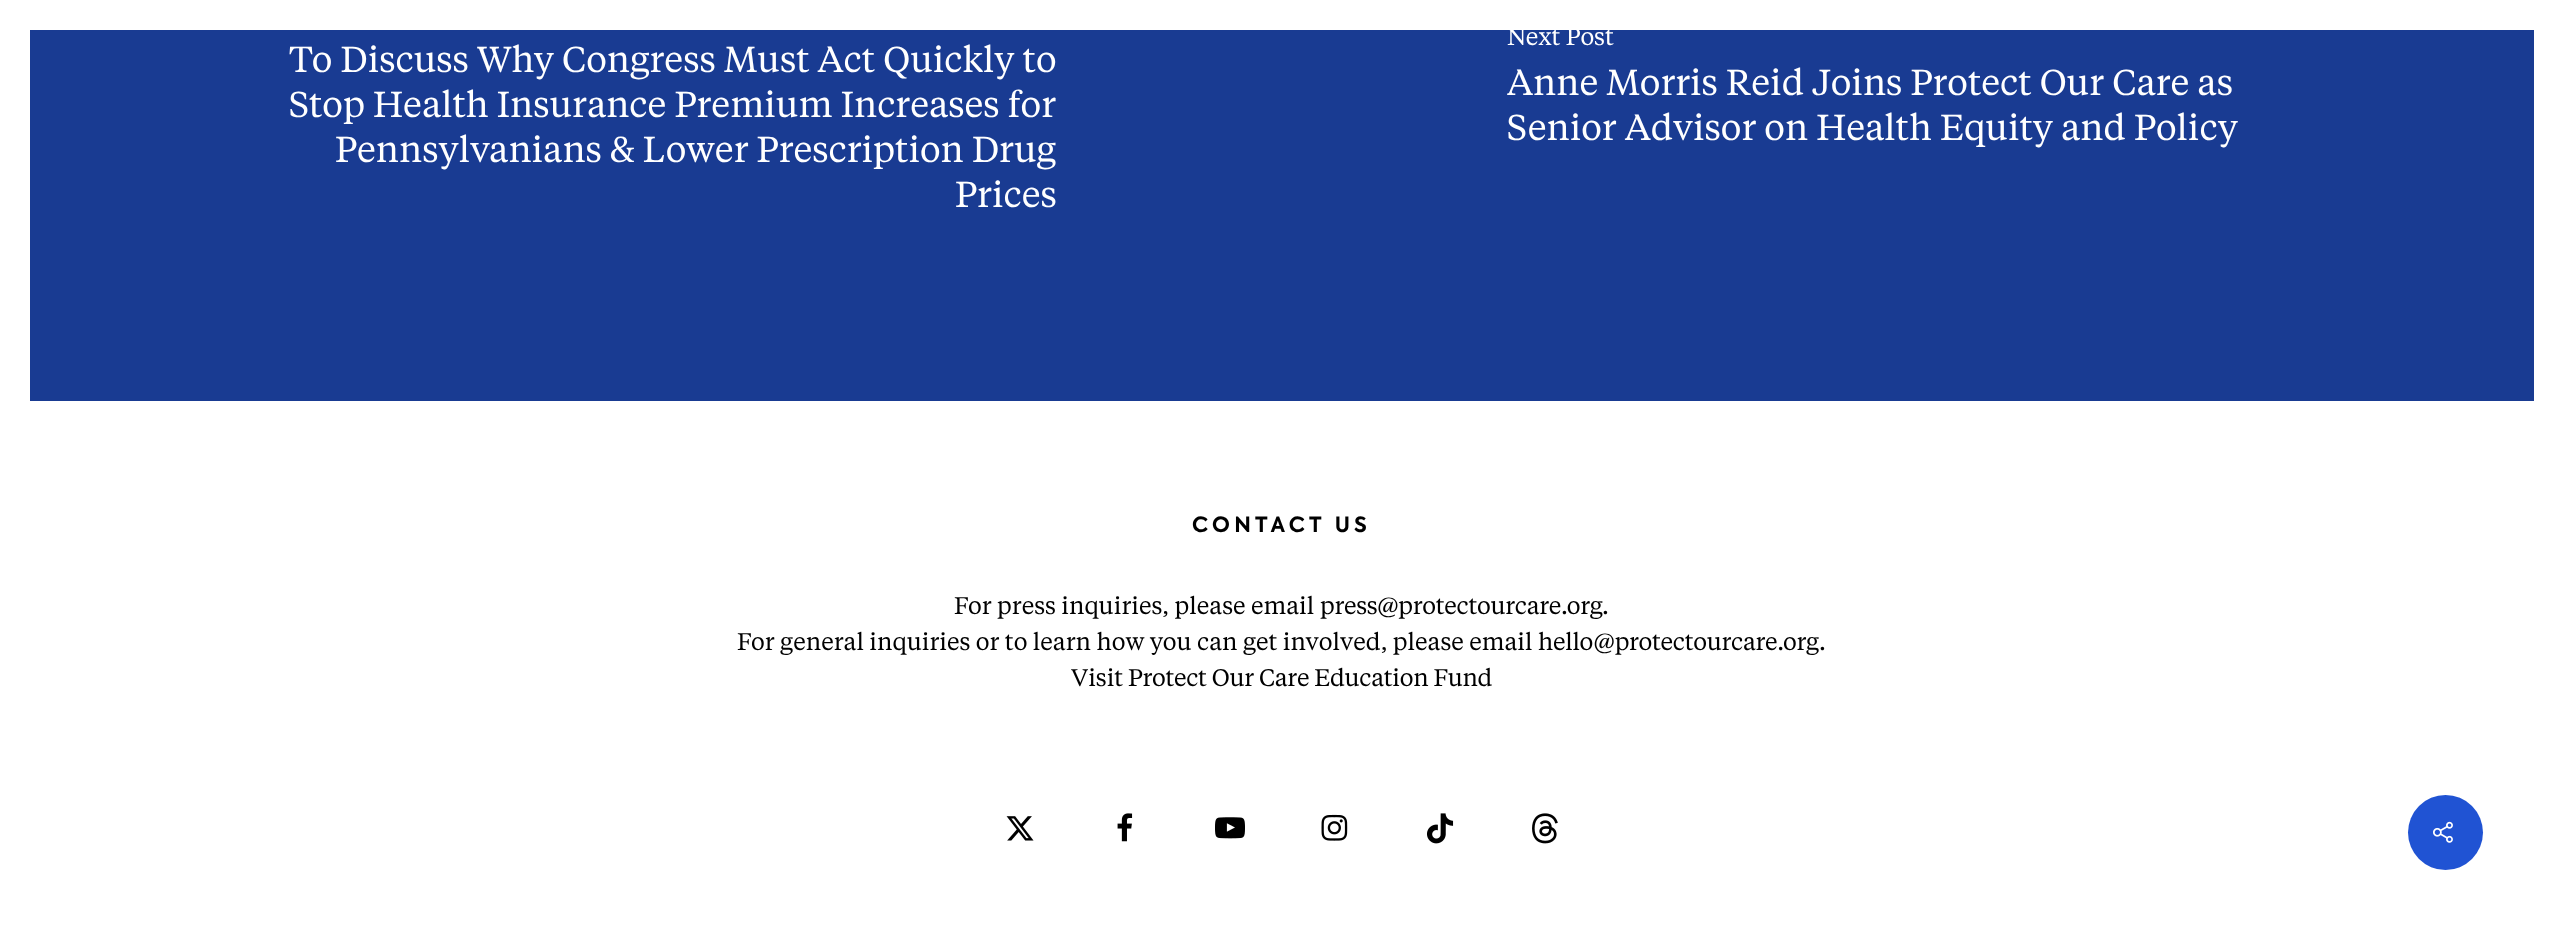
<?xml version="1.0" encoding="UTF-8"?>
<svg xmlns="http://www.w3.org/2000/svg" xmlns:xlink="http://www.w3.org/1999/xlink" width="2563" height="950">
  <rect width="100%" height="100%" fill="#ffffff" />
  <rect x="30" y="30" width="2504" height="371" fill="#193b92" />
  <image x="1006" y="816" width="28" height="25" xlink:href="image1.png" />
  <image x="1117" y="813" width="16" height="29" xlink:href="image2.png" />
  <image x="1215" y="817" width="30" height="22" xlink:href="image3.png" />
  <image x="1321" y="814" width="27" height="27" xlink:href="image4.png" />
  <image x="1427" y="813" width="27" height="31" xlink:href="image5.png" />
  <image x="1532" y="813" width="26" height="31" xlink:href="image6.png" />
  <circle cx="2445.5" cy="832.5" r="37.5" fill="#2053d3" />
  <image x="2433" y="821" width="20" height="22" xlink:href="image7.png" />
  <text x="289" y="72" style="font-family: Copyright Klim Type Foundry; font-size: 36px; fill: #ffffff">To Discuss Why Congress Must Act Quickly to</text>
  <text x="289" y="117" style="font-family: Copyright Klim Type Foundry; font-size: 36px; fill: #ffffff">Stop Health Insurance Premium Increases for</text>
  <text x="335" y="162" style="font-family: Copyright Klim Type Foundry; font-size: 36px; fill: #ffffff">Pennsylvanians &amp; Lower Prescription Drug</text>
  <text x="955" y="207" style="font-family: Copyright Klim Type Foundry; font-size: 36px; fill: #ffffff">Prices</text>
  <text x="1507" y="45" style="font-family: Copyright Klim Type Foundry; font-size: 24px; fill: #ffffff">Next Post</text>
  <text x="1507" y="95" style="font-family: Copyright Klim Type Foundry; font-size: 36px; fill: #ffffff">Anne Morris Reid Joins Protect Our Care as</text>
  <text x="1507" y="140" style="font-family: Copyright Klim Type Foundry; font-size: 36px; fill: #ffffff">Senior Advisor on Health Equity and Policy</text>
  <text x="1192" y="532" style="font-family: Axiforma; font-size: 21px; font-weight: bold; letter-spacing: 4.25px; fill: #000000">CONTACT US</text>
  <text x="954" y="614" style="font-family: Copyright Klim Type Foundry; font-size: 24px; fill: #000000">For press inquiries, please email</text>
  <text x="1320" y="614" style="font-family: Copyright Klim Type Foundry; font-size: 24px; letter-spacing: -0.3px; fill: #000000">press@protectourcare.org</text>
  <text x="1602" y="614" style="font-family: Copyright Klim Type Foundry; font-size: 24px; fill: #000000">.</text>
  <text x="737" y="650" style="font-family: Copyright Klim Type Foundry; font-size: 24px; fill: #000000">For general inquiries or to learn how you can get involved, please email</text>
  <text x="1538" y="650" style="font-family: Copyright Klim Type Foundry; font-size: 24px; letter-spacing: -0.3px; fill: #000000">hello@protectourcare.org</text>
  <text x="1819" y="650" style="font-family: Copyright Klim Type Foundry; font-size: 24px; fill: #000000">.</text>
  <text x="1071" y="686" style="font-family: Copyright Klim Type Foundry; font-size: 24px; fill: #000000">Visit</text>
  <text x="1128" y="686" style="font-family: Copyright Klim Type Foundry; font-size: 24px; letter-spacing: -0.3px; fill: #000000">Protect Our Care Education Fund</text>
</svg>
